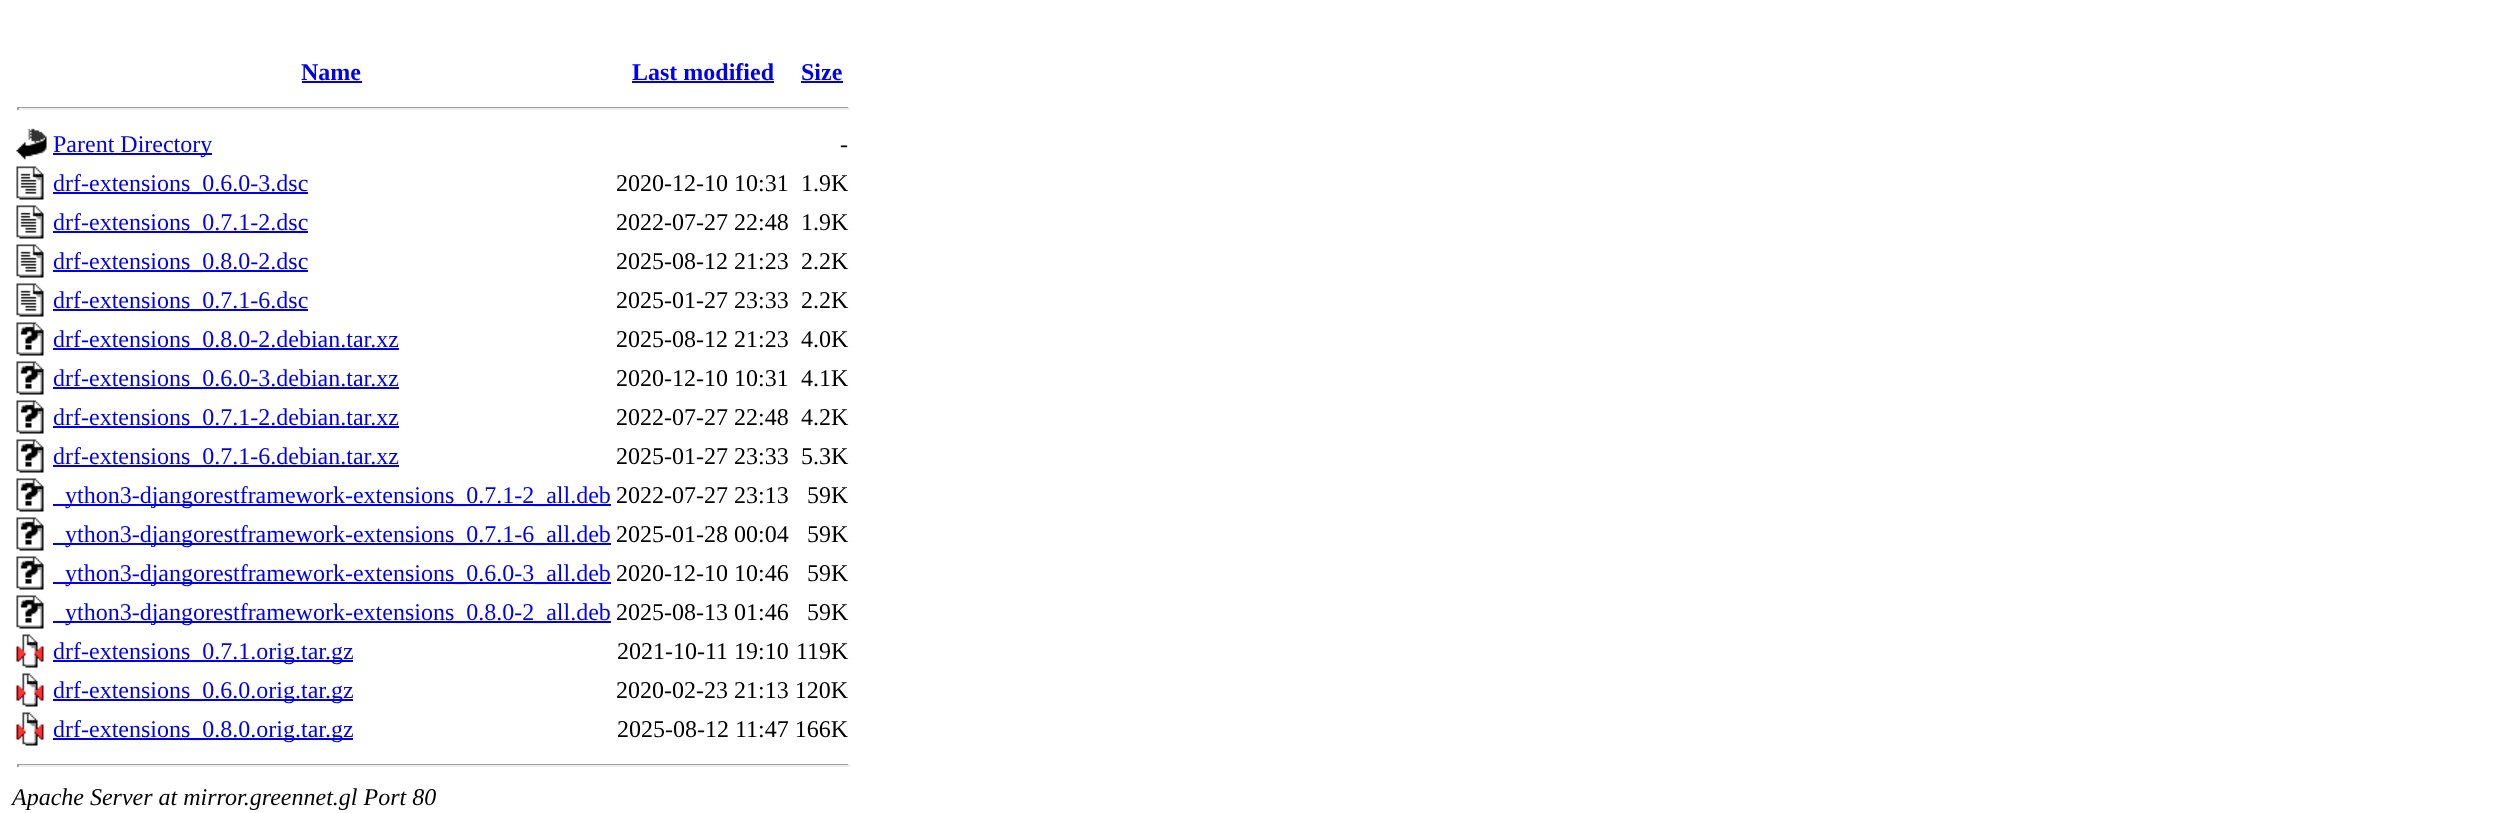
<?xml version="1.0" encoding="UTF-8"?>
<svg xmlns="http://www.w3.org/2000/svg" xmlns:xlink="http://www.w3.org/1999/xlink" width="2510" height="813">
  <rect width="100%" height="100%" fill="#ffffff" />
  <rect x="302" y="81" width="60" height="2" fill="#0000ee" />
  <rect x="632" y="81" width="142" height="2" fill="#0000ee" />
  <rect x="801" y="81" width="42" height="2" fill="#0000ee" />
  <rect x="17" y="107" width="832" height="1" fill="#9f9f9f" />
  <rect x="848" y="107" width="2" height="3" fill="#eeeeee" />
  <rect x="17" y="108" width="832" height="2" fill="#eeeeee" />
  <rect x="17" y="107" width="2" height="3" fill="#9f9f9f" />
  <image x="16" y="128" width="31" height="32" xlink:href="image1.png" />
  <rect x="53" y="153" width="159" height="2" fill="#0000ee" />
  <image x="16" y="166" width="28" height="34" xlink:href="image2.png" />
  <rect x="53" y="192" width="255" height="2" fill="#0000ee" />
  <image x="16" y="205" width="28" height="34" xlink:href="image2.png" />
  <rect x="53" y="231" width="255" height="2" fill="#0000ee" />
  <image x="16" y="244" width="28" height="34" xlink:href="image2.png" />
  <rect x="53" y="270" width="255" height="2" fill="#0000ee" />
  <image x="16" y="283" width="28" height="34" xlink:href="image2.png" />
  <rect x="53" y="309" width="255" height="2" fill="#0000ee" />
  <image x="16" y="322" width="28" height="34" xlink:href="image3.png" />
  <rect x="53" y="348" width="346" height="2" fill="#0000ee" />
  <image x="16" y="361" width="28" height="34" xlink:href="image3.png" />
  <rect x="53" y="387" width="346" height="2" fill="#0000ee" />
  <image x="16" y="400" width="28" height="34" xlink:href="image3.png" />
  <rect x="53" y="426" width="346" height="2" fill="#0000ee" />
  <image x="16" y="439" width="28" height="34" xlink:href="image3.png" />
  <rect x="53" y="465" width="346" height="2" fill="#0000ee" />
  <image x="16" y="478" width="28" height="34" xlink:href="image3.png" />
  <rect x="53" y="504" width="558" height="2" fill="#0000ee" />
  <image x="16" y="517" width="28" height="34" xlink:href="image3.png" />
  <rect x="53" y="543" width="558" height="2" fill="#0000ee" />
  <image x="16" y="556" width="28" height="34" xlink:href="image3.png" />
  <rect x="53" y="582" width="558" height="2" fill="#0000ee" />
  <image x="16" y="595" width="28" height="34" xlink:href="image3.png" />
  <rect x="53" y="621" width="558" height="2" fill="#0000ee" />
  <image x="16" y="634" width="28" height="34" xlink:href="image4.png" />
  <rect x="53" y="660" width="300" height="2" fill="#0000ee" />
  <image x="16" y="673" width="28" height="34" xlink:href="image4.png" />
  <rect x="53" y="699" width="300" height="2" fill="#0000ee" />
  <image x="16" y="712" width="28" height="34" xlink:href="image4.png" />
  <rect x="53" y="738" width="300" height="2" fill="#0000ee" />
  <rect x="17" y="764" width="832" height="1" fill="#9f9f9f" />
  <rect x="848" y="764" width="2" height="3" fill="#eeeeee" />
  <rect x="17" y="765" width="832" height="2" fill="#eeeeee" />
  <rect x="17" y="764" width="2" height="3" fill="#9f9f9f" />
  <text x="301" y="80" style="font-family: Liberation Serif; font-size: 24px; font-weight: bold; fill: #0000ee">Name</text>
  <text x="632" y="80" style="font-family: Liberation Serif; font-size: 24px; font-weight: bold; fill: #0000ee">Last modified</text>
  <text x="801" y="80" style="font-family: Liberation Serif; font-size: 24px; font-weight: bold; fill: #0000ee">Size</text>
  <text x="53" y="152" style="font-family: Liberation Serif; font-size: 24px; fill: #0000ee">Parent Directory</text>
  <text x="840" y="152" style="font-family: Liberation Serif; font-size: 24px; fill: #000000">-</text>
  <text x="53" y="191" style="font-family: Liberation Serif; font-size: 24px; fill: #0000ee">drf-extensions_0.6.0-3.dsc</text>
  <text x="616" y="191" style="font-family: Liberation Serif; font-size: 24px; fill: #000000">2020-12-10 10:31</text>
  <text x="801" y="191" style="font-family: Liberation Serif; font-size: 24px; fill: #000000">1.9K</text>
  <text x="53" y="230" style="font-family: Liberation Serif; font-size: 24px; fill: #0000ee">drf-extensions_0.7.1-2.dsc</text>
  <text x="616" y="230" style="font-family: Liberation Serif; font-size: 24px; fill: #000000">2022-07-27 22:48</text>
  <text x="801" y="230" style="font-family: Liberation Serif; font-size: 24px; fill: #000000">1.9K</text>
  <text x="53" y="269" style="font-family: Liberation Serif; font-size: 24px; fill: #0000ee">drf-extensions_0.8.0-2.dsc</text>
  <text x="616" y="269" style="font-family: Liberation Serif; font-size: 24px; fill: #000000">2025-08-12 21:23</text>
  <text x="801" y="269" style="font-family: Liberation Serif; font-size: 24px; fill: #000000">2.2K</text>
  <text x="53" y="308" style="font-family: Liberation Serif; font-size: 24px; fill: #0000ee">drf-extensions_0.7.1-6.dsc</text>
  <text x="616" y="308" style="font-family: Liberation Serif; font-size: 24px; fill: #000000">2025-01-27 23:33</text>
  <text x="801" y="308" style="font-family: Liberation Serif; font-size: 24px; fill: #000000">2.2K</text>
  <text x="53" y="347" style="font-family: Liberation Serif; font-size: 24px; fill: #0000ee">drf-extensions_0.8.0-2.debian.tar.xz</text>
  <text x="616" y="347" style="font-family: Liberation Serif; font-size: 24px; fill: #000000">2025-08-12 21:23</text>
  <text x="801" y="347" style="font-family: Liberation Serif; font-size: 24px; fill: #000000">4.0K</text>
  <text x="53" y="386" style="font-family: Liberation Serif; font-size: 24px; fill: #0000ee">drf-extensions_0.6.0-3.debian.tar.xz</text>
  <text x="616" y="386" style="font-family: Liberation Serif; font-size: 24px; fill: #000000">2020-12-10 10:31</text>
  <text x="801" y="386" style="font-family: Liberation Serif; font-size: 24px; fill: #000000">4.1K</text>
  <text x="53" y="425" style="font-family: Liberation Serif; font-size: 24px; fill: #0000ee">drf-extensions_0.7.1-2.debian.tar.xz</text>
  <text x="616" y="425" style="font-family: Liberation Serif; font-size: 24px; fill: #000000">2022-07-27 22:48</text>
  <text x="801" y="425" style="font-family: Liberation Serif; font-size: 24px; fill: #000000">4.2K</text>
  <text x="53" y="464" style="font-family: Liberation Serif; font-size: 24px; fill: #0000ee">drf-extensions_0.7.1-6.debian.tar.xz</text>
  <text x="616" y="464" style="font-family: Liberation Serif; font-size: 24px; fill: #000000">2025-01-27 23:33</text>
  <text x="801" y="464" style="font-family: Liberation Serif; font-size: 24px; fill: #000000">5.3K</text>
  <text x="65" y="503" style="font-family: Liberation Serif; font-size: 24px; fill: #0000ee">ython3-djangorestframework-extensions_0.7.1-2_all.deb</text>
  <text x="616" y="503" style="font-family: Liberation Serif; font-size: 24px; fill: #000000">2022-07-27 23:13</text>
  <text x="807" y="503" style="font-family: Liberation Serif; font-size: 24px; fill: #000000">59K</text>
  <text x="65" y="542" style="font-family: Liberation Serif; font-size: 24px; fill: #0000ee">ython3-djangorestframework-extensions_0.7.1-6_all.deb</text>
  <text x="616" y="542" style="font-family: Liberation Serif; font-size: 24px; fill: #000000">2025-01-28 00:04</text>
  <text x="807" y="542" style="font-family: Liberation Serif; font-size: 24px; fill: #000000">59K</text>
  <text x="65" y="581" style="font-family: Liberation Serif; font-size: 24px; fill: #0000ee">ython3-djangorestframework-extensions_0.6.0-3_all.deb</text>
  <text x="616" y="581" style="font-family: Liberation Serif; font-size: 24px; fill: #000000">2020-12-10 10:46</text>
  <text x="807" y="581" style="font-family: Liberation Serif; font-size: 24px; fill: #000000">59K</text>
  <text x="65" y="620" style="font-family: Liberation Serif; font-size: 24px; fill: #0000ee">ython3-djangorestframework-extensions_0.8.0-2_all.deb</text>
  <text x="616" y="620" style="font-family: Liberation Serif; font-size: 24px; fill: #000000">2025-08-13 01:46</text>
  <text x="807" y="620" style="font-family: Liberation Serif; font-size: 24px; fill: #000000">59K</text>
  <text x="53" y="659" style="font-family: Liberation Serif; font-size: 24px; fill: #0000ee">drf-extensions_0.7.1.orig.tar.gz</text>
  <text x="617" y="659" style="font-family: Liberation Serif; font-size: 24px; fill: #000000">2021-10-11 19:10</text>
  <text x="796" y="659" style="font-family: Liberation Serif; font-size: 24px; fill: #000000">119K</text>
  <text x="53" y="698" style="font-family: Liberation Serif; font-size: 24px; fill: #0000ee">drf-extensions_0.6.0.orig.tar.gz</text>
  <text x="616" y="698" style="font-family: Liberation Serif; font-size: 24px; fill: #000000">2020-02-23 21:13 120K</text>
  <text x="53" y="737" style="font-family: Liberation Serif; font-size: 24px; fill: #0000ee">drf-extensions_0.8.0.orig.tar.gz</text>
  <text x="617" y="737" style="font-family: Liberation Serif; font-size: 24px; fill: #000000">2025-08-12 11:47 166K</text>
  <text x="12" y="805" style="font-family: Liberation Serif; font-size: 24px; font-style: italic; fill: #000000">Apache Server at mirror.greennet.gl Port 80</text>
</svg>
